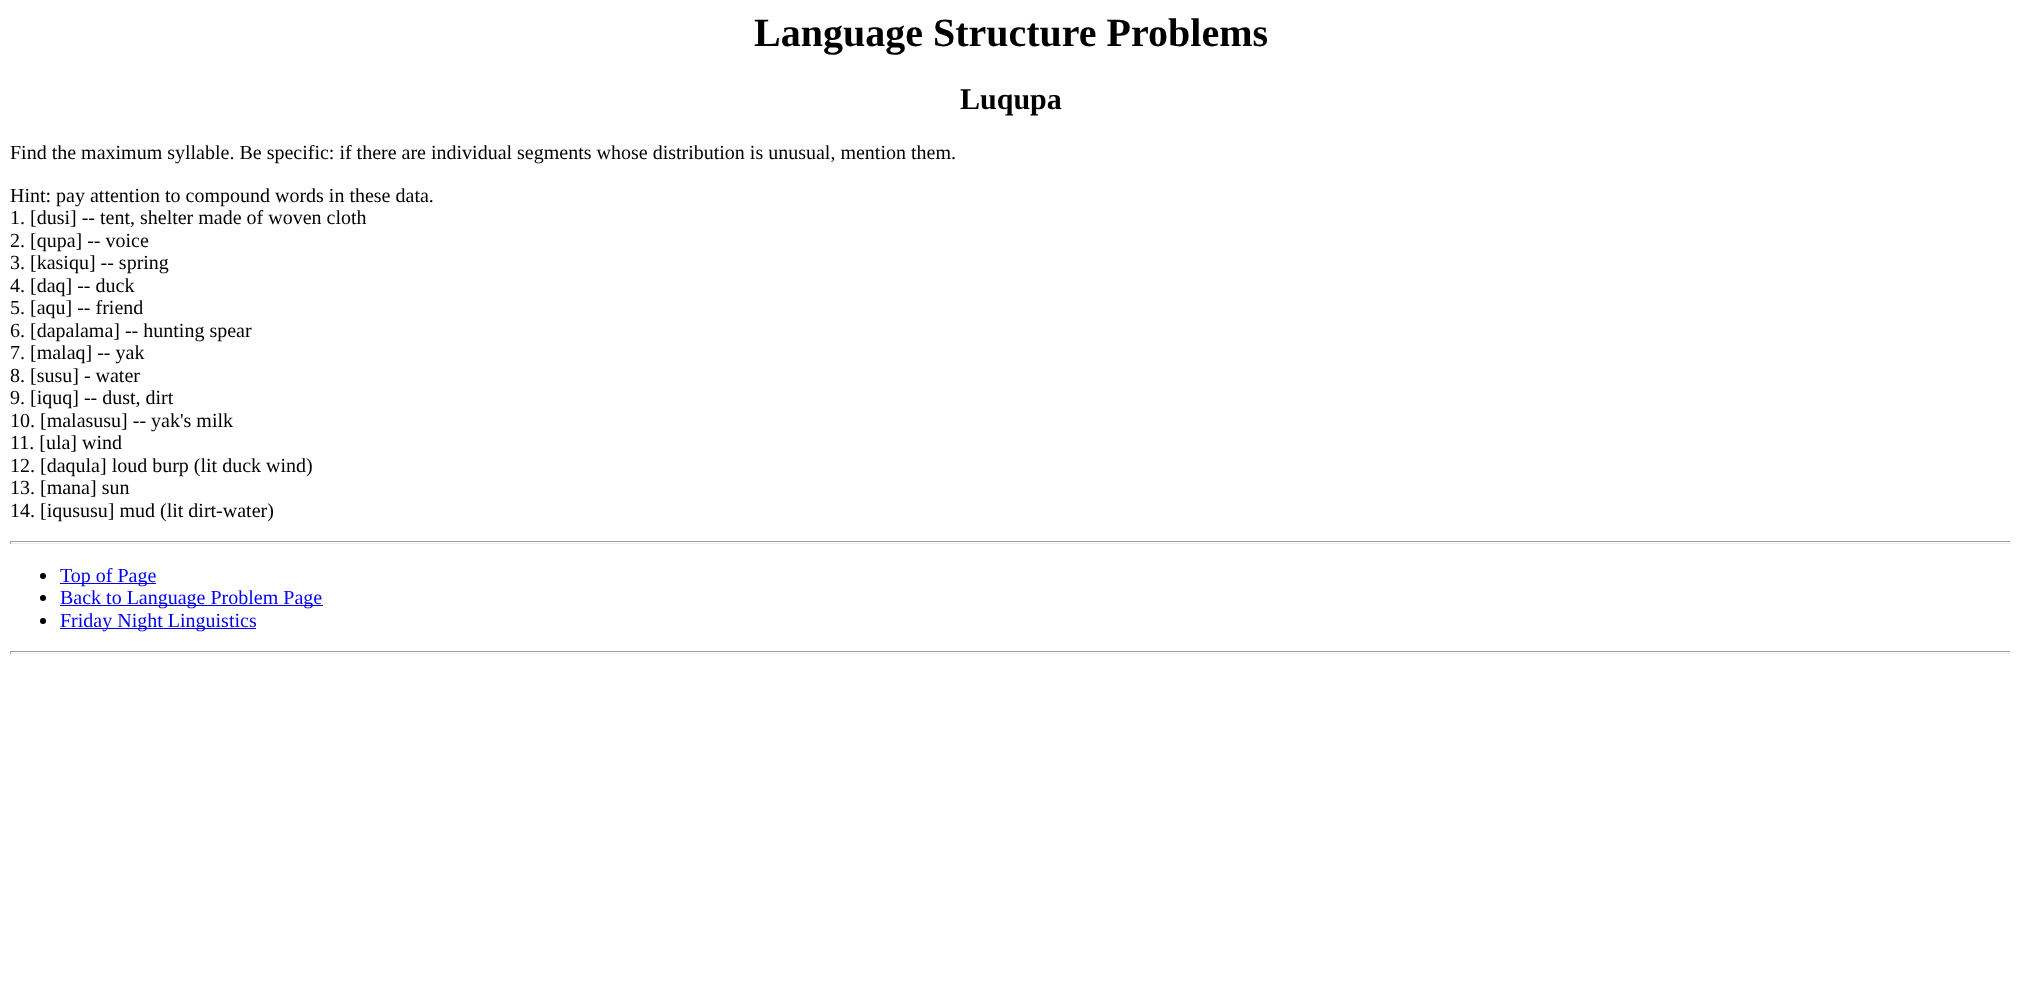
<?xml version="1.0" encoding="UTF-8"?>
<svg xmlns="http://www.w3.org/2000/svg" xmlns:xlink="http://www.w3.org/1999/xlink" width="2021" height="996">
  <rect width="100%" height="100%" fill="#ffffff" />
  <rect x="10" y="541" width="2001" height="1" fill="#9f9f9f" />
  <rect x="2010" y="541" width="1" height="3" fill="#eeeeee" />
  <rect x="10" y="543" width="2001" height="1" fill="#eeeeee" />
  <rect x="10" y="541" width="1" height="3" fill="#9f9f9f" />
  <circle cx="43" cy="576" r="3" fill="#000000" />
  <rect x="60" y="583" width="96" height="1" fill="#0000ee" />
  <circle cx="43" cy="598" r="3" fill="#000000" />
  <rect x="60" y="605" width="263" height="1" fill="#0000ee" />
  <circle cx="43" cy="621" r="3" fill="#000000" />
  <rect x="60" y="628" width="196" height="1" fill="#0000ee" />
  <rect x="10" y="651" width="2001" height="1" fill="#9f9f9f" />
  <rect x="2010" y="651" width="1" height="3" fill="#eeeeee" />
  <rect x="10" y="653" width="2001" height="1" fill="#eeeeee" />
  <rect x="10" y="651" width="1" height="3" fill="#9f9f9f" />
  <text x="754" y="46" style="font-family: Liberation Serif; font-size: 40px; font-weight: bold; fill: #000000">Language Structure Problems</text>
  <text x="960" y="109" style="font-family: Liberation Serif; font-size: 30px; font-weight: bold; fill: #000000">Luqupa</text>
  <text x="10" y="159" style="font-family: Liberation Serif; font-size: 20px; fill: #000000">Find the maximum syllable. Be specific: if there are individual segments whose distribution is unusual, mention them.</text>
  <text x="10" y="202" style="font-family: Liberation Serif; font-size: 20px; fill: #000000">Hint: pay attention to compound words in these data.</text>
  <text x="10" y="224" style="font-family: Liberation Serif; font-size: 20px; fill: #000000">1. [dusi] -- tent, shelter made of woven cloth</text>
  <text x="10" y="247" style="font-family: Liberation Serif; font-size: 20px; fill: #000000">2. [qupa] -- voice</text>
  <text x="10" y="269" style="font-family: Liberation Serif; font-size: 20px; fill: #000000">3. [kasiqu] -- spring</text>
  <text x="10" y="292" style="font-family: Liberation Serif; font-size: 20px; fill: #000000">4. [daq] -- duck</text>
  <text x="10" y="314" style="font-family: Liberation Serif; font-size: 20px; fill: #000000">5. [aqu] -- friend</text>
  <text x="10" y="337" style="font-family: Liberation Serif; font-size: 20px; fill: #000000">6. [dapalama] -- hunting spear</text>
  <text x="10" y="359" style="font-family: Liberation Serif; font-size: 20px; fill: #000000">7. [malaq] -- yak</text>
  <text x="10" y="382" style="font-family: Liberation Serif; font-size: 20px; fill: #000000">8. [susu] - water</text>
  <text x="10" y="404" style="font-family: Liberation Serif; font-size: 20px; fill: #000000">9. [iquq] -- dust, dirt</text>
  <text x="10" y="427" style="font-family: Liberation Serif; font-size: 20px; fill: #000000">10. [malasusu] -- yak's milk</text>
  <text x="10" y="449" style="font-family: Liberation Serif; font-size: 20px; fill: #000000">11. [ula] wind</text>
  <text x="10" y="472" style="font-family: Liberation Serif; font-size: 20px; fill: #000000">12. [daqula] loud burp (lit duck wind)</text>
  <text x="10" y="494" style="font-family: Liberation Serif; font-size: 20px; fill: #000000">13. [mana] sun</text>
  <text x="10" y="517" style="font-family: Liberation Serif; font-size: 20px; fill: #000000">14. [iqususu] mud (lit dirt-water)</text>
  <text x="60" y="582" style="font-family: Liberation Serif; font-size: 20px; fill: #0000ee">Top of Page</text>
  <text x="60" y="604" style="font-family: Liberation Serif; font-size: 20px; fill: #0000ee">Back to Language Problem Page</text>
  <text x="60" y="627" style="font-family: Liberation Serif; font-size: 20px; fill: #0000ee">Friday Night Linguistics</text>
</svg>
